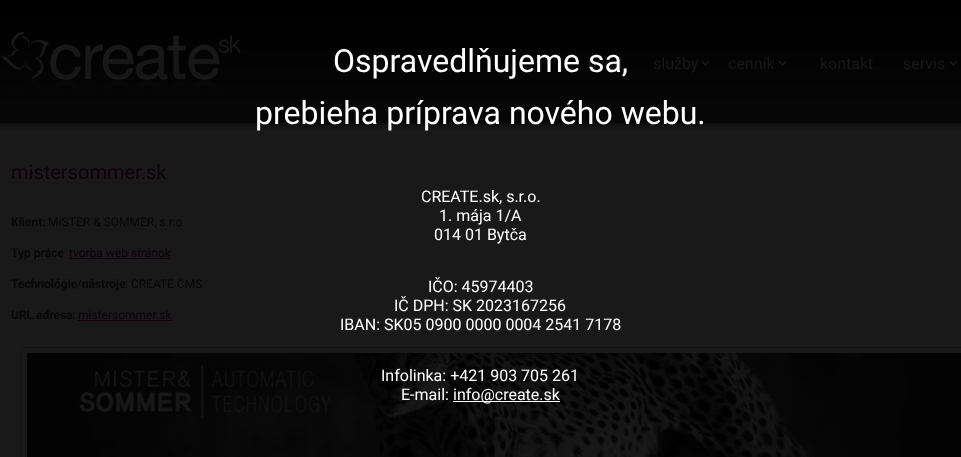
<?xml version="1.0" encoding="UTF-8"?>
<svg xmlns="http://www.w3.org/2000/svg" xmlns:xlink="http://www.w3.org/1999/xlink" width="961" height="457">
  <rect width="100%" height="100%" fill="#191919" />
  <image x="0" y="0" width="961" height="131" xlink:href="image1.png" />
  <rect x="21.5" y="347.5" width="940" height="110" fill="none" stroke="#141414" />
  <image x="27" y="353" width="934" height="104" xlink:href="image4.png" />
  <rect x="453" y="401" width="107" height="1" fill="#ffffff" />
  <image x="1" y="32" width="240" height="63" xlink:href="image2.png" />
  <image x="702" y="61" width="9" height="7" xlink:href="image3.png" />
  <image x="779" y="61" width="9" height="7" xlink:href="image3.png" />
  <image x="950" y="61" width="9" height="7" xlink:href="image3.png" />
  <rect x="69" y="258" width="102" height="1" fill="#11010c" />
  <rect x="78" y="320" width="94" height="1" fill="#11010c" />
  <text x="255" y="124" style="font-family: Roboto; font-size: 32px; fill: #ffffff">prebieha príprava nového webu.</text>
  <text x="421" y="202" style="font-family: Roboto; font-size: 16px; fill: #ffffff">CREATE.sk, s.r.o.</text>
  <text x="439" y="221" style="font-family: Roboto; font-size: 16px; fill: #ffffff">1. mája 1/A</text>
  <text x="434" y="240" style="font-family: Roboto; font-size: 16px; fill: #ffffff">014 01 Bytča</text>
  <text x="428" y="292" style="font-family: Roboto; font-size: 16px; fill: #ffffff">IČO: 45974403</text>
  <text x="394" y="311" style="font-family: Roboto; font-size: 16px; fill: #ffffff">IČ DPH: SK 2023167256</text>
  <text x="340" y="330" style="font-family: Roboto; font-size: 16px; fill: #ffffff">IBAN: SK05 0900 0000 0004 2541 7178</text>
  <text x="381" y="381" style="font-family: Roboto; font-size: 16px; fill: #ffffff">Infolinka: +421 903 705 261</text>
  <text x="401" y="400" style="font-family: Roboto; font-size: 16px; fill: #ffffff">E-mail:</text>
  <text x="453" y="400" style="font-family: Roboto; font-size: 16px; fill: #ffffff">info@create.sk</text>
  <text x="588" y="69" style="font-family: Roboto; font-size: 16px; fill: #191919">úvod</text>
  <text x="333" y="72" style="font-family: Roboto; font-size: 32px; fill: #ffffff">Ospravedlňujeme sa,</text>
  <text x="653" y="69" style="font-family: Roboto; font-size: 16px; fill: #191919">služby</text>
  <text x="728" y="69" style="font-family: Roboto; font-size: 16px; fill: #191919">cenník</text>
  <text x="820" y="69" style="font-family: Roboto; font-size: 16px; fill: #191919">kontakt</text>
  <text x="903" y="69" style="font-family: Roboto; font-size: 16px; fill: #191919">servis</text>
  <text x="11" y="179" style="font-family: Roboto; font-size: 20px; fill: #11010c">mistersommer.sk</text>
  <text x="11" y="226" style="font-family: Roboto; font-size: 12px; font-weight: bold; fill: #080808">Klient:</text>
  <text x="48" y="226" style="font-family: Roboto; font-size: 12px; fill: #080808">MISTER &amp; SOMMER, s.r.o.</text>
  <text x="11" y="257" style="font-family: Roboto; font-size: 12px; font-weight: bold; fill: #080808">Typ práce</text>
  <text x="69" y="257" style="font-family: Roboto; font-size: 12px; fill: #11010c">tvorba web stránok</text>
  <text x="11" y="288" style="font-family: Roboto; font-size: 12px; font-weight: bold; fill: #080808">Technológie/nástroje</text>
  <text x="125" y="288" style="font-family: Roboto; font-size: 12px; fill: #080808">: CREATE CMS</text>
  <text x="11" y="319" style="font-family: Roboto; font-size: 12px; font-weight: bold; fill: #080808">URL adresa:</text>
  <text x="78" y="319" style="font-family: Roboto; font-size: 12px; fill: #11010c">mistersommer.sk</text>
</svg>
